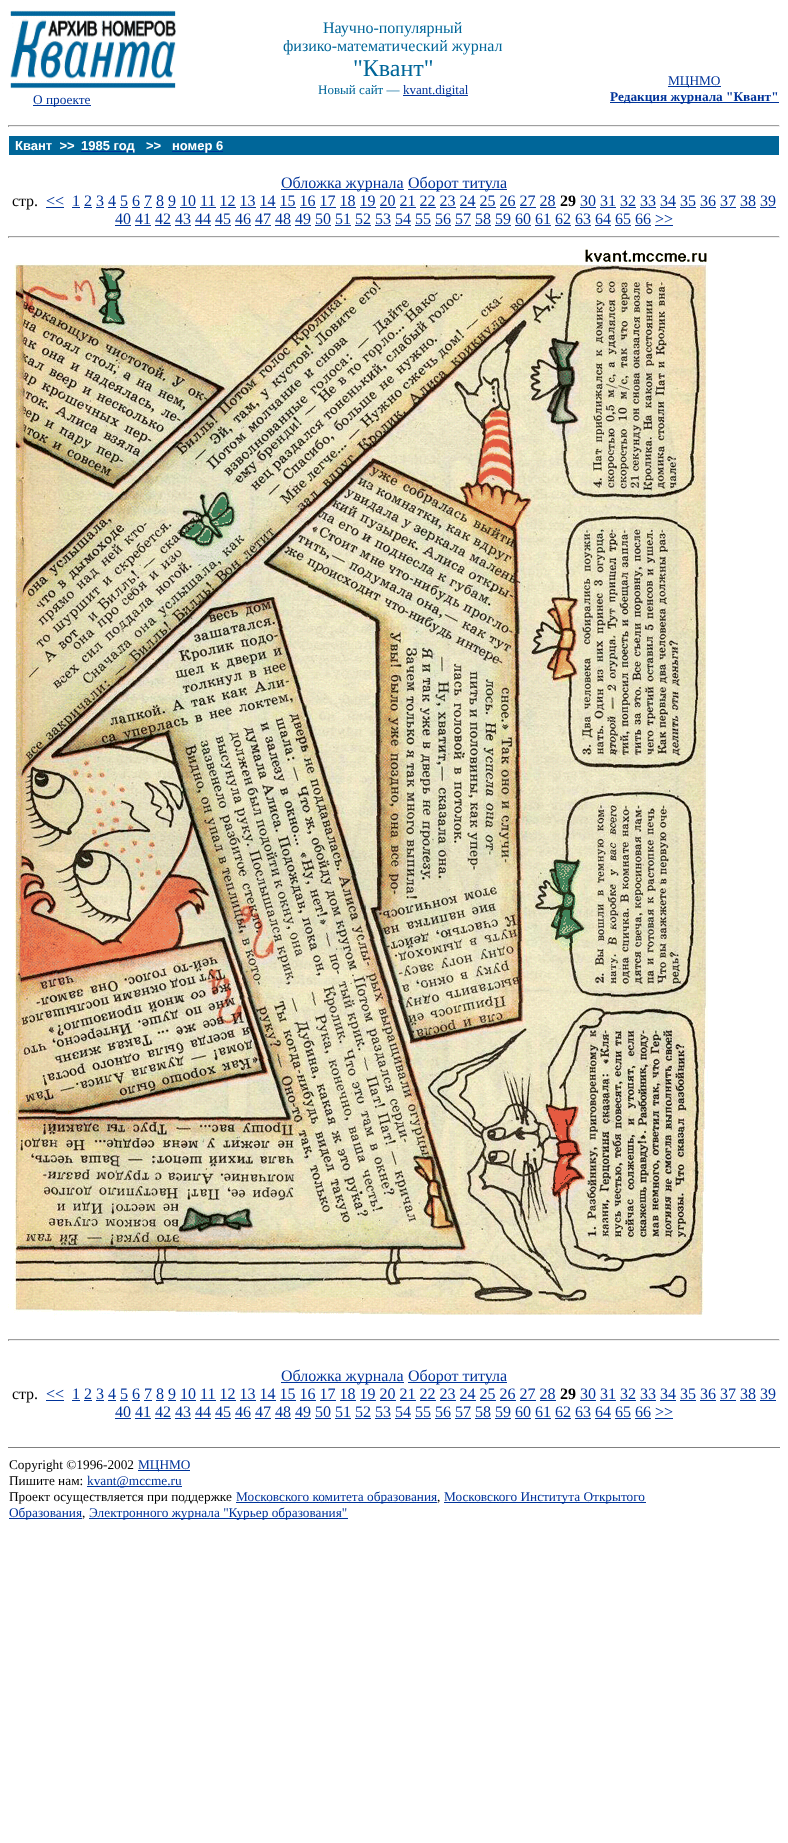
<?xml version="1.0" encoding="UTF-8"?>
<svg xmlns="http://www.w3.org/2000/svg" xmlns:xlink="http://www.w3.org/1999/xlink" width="788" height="1843">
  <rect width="100%" height="100%" fill="#ffffff" />
  <image x="10" y="10" width="166" height="79" xlink:href="image1.png" />
  <rect x="33" y="105" width="58" height="1" fill="#003399" />
  <rect x="403" y="95" width="65" height="1" fill="#003399" />
  <rect x="668" y="86" width="53" height="1" fill="#003399" />
  <rect x="610" y="102" width="169" height="1" fill="#003399" />
  <rect x="8" y="125" width="772" height="1" fill="#9f9f9f" />
  <rect x="779" y="125" width="1" height="2" fill="#eeeeee" />
  <rect x="8" y="126" width="772" height="1" fill="#eeeeee" />
  <rect x="8" y="125" width="1" height="2" fill="#9f9f9f" />
  <rect x="9" y="136" width="770" height="19" fill="#006699" />
  <rect x="81" y="151" width="54" height="1" fill="#003399" />
  <rect x="172" y="151" width="51" height="1" fill="#003399" />
  <rect x="281" y="189" width="123" height="1" fill="#003399" />
  <rect x="408" y="189" width="99" height="1" fill="#003399" />
  <rect x="46" y="207" width="18" height="1" fill="#003399" />
  <rect x="72" y="207" width="8" height="1" fill="#003399" />
  <rect x="580" y="207" width="16" height="1" fill="#003399" />
  <rect x="84" y="207" width="8" height="1" fill="#003399" />
  <rect x="96" y="207" width="8" height="1" fill="#003399" />
  <rect x="108" y="207" width="8" height="1" fill="#003399" />
  <rect x="120" y="207" width="8" height="1" fill="#003399" />
  <rect x="132" y="207" width="8" height="1" fill="#003399" />
  <rect x="144" y="207" width="8" height="1" fill="#003399" />
  <rect x="156" y="207" width="8" height="1" fill="#003399" />
  <rect x="168" y="207" width="8" height="1" fill="#003399" />
  <rect x="180" y="207" width="16" height="1" fill="#003399" />
  <rect x="200" y="207" width="16" height="1" fill="#003399" />
  <rect x="220" y="207" width="16" height="1" fill="#003399" />
  <rect x="240" y="207" width="16" height="1" fill="#003399" />
  <rect x="260" y="207" width="16" height="1" fill="#003399" />
  <rect x="280" y="207" width="16" height="1" fill="#003399" />
  <rect x="300" y="207" width="16" height="1" fill="#003399" />
  <rect x="320" y="207" width="16" height="1" fill="#003399" />
  <rect x="340" y="207" width="16" height="1" fill="#003399" />
  <rect x="360" y="207" width="16" height="1" fill="#003399" />
  <rect x="380" y="207" width="16" height="1" fill="#003399" />
  <rect x="400" y="207" width="16" height="1" fill="#003399" />
  <rect x="420" y="207" width="16" height="1" fill="#003399" />
  <rect x="440" y="207" width="16" height="1" fill="#003399" />
  <rect x="460" y="207" width="16" height="1" fill="#003399" />
  <rect x="480" y="207" width="16" height="1" fill="#003399" />
  <rect x="500" y="207" width="16" height="1" fill="#003399" />
  <rect x="520" y="207" width="16" height="1" fill="#003399" />
  <rect x="540" y="207" width="16" height="1" fill="#003399" />
  <rect x="600" y="207" width="16" height="1" fill="#003399" />
  <rect x="620" y="207" width="16" height="1" fill="#003399" />
  <rect x="640" y="207" width="16" height="1" fill="#003399" />
  <rect x="660" y="207" width="16" height="1" fill="#003399" />
  <rect x="680" y="207" width="16" height="1" fill="#003399" />
  <rect x="700" y="207" width="16" height="1" fill="#003399" />
  <rect x="720" y="207" width="16" height="1" fill="#003399" />
  <rect x="740" y="207" width="16" height="1" fill="#003399" />
  <rect x="760" y="207" width="16" height="1" fill="#003399" />
  <rect x="115" y="225" width="16" height="1" fill="#003399" />
  <rect x="135" y="225" width="16" height="1" fill="#003399" />
  <rect x="155" y="225" width="16" height="1" fill="#003399" />
  <rect x="175" y="225" width="16" height="1" fill="#003399" />
  <rect x="195" y="225" width="16" height="1" fill="#003399" />
  <rect x="215" y="225" width="16" height="1" fill="#003399" />
  <rect x="235" y="225" width="16" height="1" fill="#003399" />
  <rect x="255" y="225" width="16" height="1" fill="#003399" />
  <rect x="275" y="225" width="16" height="1" fill="#003399" />
  <rect x="295" y="225" width="16" height="1" fill="#003399" />
  <rect x="315" y="225" width="16" height="1" fill="#003399" />
  <rect x="335" y="225" width="16" height="1" fill="#003399" />
  <rect x="355" y="225" width="16" height="1" fill="#003399" />
  <rect x="375" y="225" width="16" height="1" fill="#003399" />
  <rect x="395" y="225" width="16" height="1" fill="#003399" />
  <rect x="415" y="225" width="16" height="1" fill="#003399" />
  <rect x="435" y="225" width="16" height="1" fill="#003399" />
  <rect x="455" y="225" width="16" height="1" fill="#003399" />
  <rect x="475" y="225" width="16" height="1" fill="#003399" />
  <rect x="495" y="225" width="16" height="1" fill="#003399" />
  <rect x="515" y="225" width="16" height="1" fill="#003399" />
  <rect x="535" y="225" width="16" height="1" fill="#003399" />
  <rect x="555" y="225" width="16" height="1" fill="#003399" />
  <rect x="575" y="225" width="16" height="1" fill="#003399" />
  <rect x="595" y="225" width="16" height="1" fill="#003399" />
  <rect x="615" y="225" width="16" height="1" fill="#003399" />
  <rect x="635" y="225" width="16" height="1" fill="#003399" />
  <rect x="655" y="225" width="18" height="1" fill="#003399" />
  <rect x="8" y="236" width="772" height="1" fill="#9f9f9f" />
  <rect x="779" y="236" width="1" height="2" fill="#eeeeee" />
  <rect x="8" y="237" width="772" height="1" fill="#eeeeee" />
  <rect x="8" y="236" width="1" height="2" fill="#9f9f9f" />
  <image x="8" y="249" width="700" height="1071" xlink:href="image2.png" />
  <rect x="8" y="1339" width="772" height="1" fill="#9f9f9f" />
  <rect x="779" y="1339" width="1" height="2" fill="#eeeeee" />
  <rect x="8" y="1340" width="772" height="1" fill="#eeeeee" />
  <rect x="8" y="1339" width="1" height="2" fill="#9f9f9f" />
  <rect x="281" y="1382" width="123" height="1" fill="#003399" />
  <rect x="408" y="1382" width="99" height="1" fill="#003399" />
  <rect x="46" y="1400" width="18" height="1" fill="#003399" />
  <rect x="72" y="1400" width="8" height="1" fill="#003399" />
  <rect x="580" y="1400" width="16" height="1" fill="#003399" />
  <rect x="84" y="1400" width="8" height="1" fill="#003399" />
  <rect x="96" y="1400" width="8" height="1" fill="#003399" />
  <rect x="108" y="1400" width="8" height="1" fill="#003399" />
  <rect x="120" y="1400" width="8" height="1" fill="#003399" />
  <rect x="132" y="1400" width="8" height="1" fill="#003399" />
  <rect x="144" y="1400" width="8" height="1" fill="#003399" />
  <rect x="156" y="1400" width="8" height="1" fill="#003399" />
  <rect x="168" y="1400" width="8" height="1" fill="#003399" />
  <rect x="180" y="1400" width="16" height="1" fill="#003399" />
  <rect x="200" y="1400" width="16" height="1" fill="#003399" />
  <rect x="220" y="1400" width="16" height="1" fill="#003399" />
  <rect x="240" y="1400" width="16" height="1" fill="#003399" />
  <rect x="260" y="1400" width="16" height="1" fill="#003399" />
  <rect x="280" y="1400" width="16" height="1" fill="#003399" />
  <rect x="300" y="1400" width="16" height="1" fill="#003399" />
  <rect x="320" y="1400" width="16" height="1" fill="#003399" />
  <rect x="340" y="1400" width="16" height="1" fill="#003399" />
  <rect x="360" y="1400" width="16" height="1" fill="#003399" />
  <rect x="380" y="1400" width="16" height="1" fill="#003399" />
  <rect x="400" y="1400" width="16" height="1" fill="#003399" />
  <rect x="420" y="1400" width="16" height="1" fill="#003399" />
  <rect x="440" y="1400" width="16" height="1" fill="#003399" />
  <rect x="460" y="1400" width="16" height="1" fill="#003399" />
  <rect x="480" y="1400" width="16" height="1" fill="#003399" />
  <rect x="500" y="1400" width="16" height="1" fill="#003399" />
  <rect x="520" y="1400" width="16" height="1" fill="#003399" />
  <rect x="540" y="1400" width="16" height="1" fill="#003399" />
  <rect x="600" y="1400" width="16" height="1" fill="#003399" />
  <rect x="620" y="1400" width="16" height="1" fill="#003399" />
  <rect x="640" y="1400" width="16" height="1" fill="#003399" />
  <rect x="660" y="1400" width="16" height="1" fill="#003399" />
  <rect x="680" y="1400" width="16" height="1" fill="#003399" />
  <rect x="700" y="1400" width="16" height="1" fill="#003399" />
  <rect x="720" y="1400" width="16" height="1" fill="#003399" />
  <rect x="740" y="1400" width="16" height="1" fill="#003399" />
  <rect x="760" y="1400" width="16" height="1" fill="#003399" />
  <rect x="115" y="1418" width="16" height="1" fill="#003399" />
  <rect x="135" y="1418" width="16" height="1" fill="#003399" />
  <rect x="155" y="1418" width="16" height="1" fill="#003399" />
  <rect x="175" y="1418" width="16" height="1" fill="#003399" />
  <rect x="195" y="1418" width="16" height="1" fill="#003399" />
  <rect x="215" y="1418" width="16" height="1" fill="#003399" />
  <rect x="235" y="1418" width="16" height="1" fill="#003399" />
  <rect x="255" y="1418" width="16" height="1" fill="#003399" />
  <rect x="275" y="1418" width="16" height="1" fill="#003399" />
  <rect x="295" y="1418" width="16" height="1" fill="#003399" />
  <rect x="315" y="1418" width="16" height="1" fill="#003399" />
  <rect x="335" y="1418" width="16" height="1" fill="#003399" />
  <rect x="355" y="1418" width="16" height="1" fill="#003399" />
  <rect x="375" y="1418" width="16" height="1" fill="#003399" />
  <rect x="395" y="1418" width="16" height="1" fill="#003399" />
  <rect x="415" y="1418" width="16" height="1" fill="#003399" />
  <rect x="435" y="1418" width="16" height="1" fill="#003399" />
  <rect x="455" y="1418" width="16" height="1" fill="#003399" />
  <rect x="475" y="1418" width="16" height="1" fill="#003399" />
  <rect x="495" y="1418" width="16" height="1" fill="#003399" />
  <rect x="515" y="1418" width="16" height="1" fill="#003399" />
  <rect x="535" y="1418" width="16" height="1" fill="#003399" />
  <rect x="555" y="1418" width="16" height="1" fill="#003399" />
  <rect x="575" y="1418" width="16" height="1" fill="#003399" />
  <rect x="595" y="1418" width="16" height="1" fill="#003399" />
  <rect x="615" y="1418" width="16" height="1" fill="#003399" />
  <rect x="635" y="1418" width="16" height="1" fill="#003399" />
  <rect x="655" y="1418" width="18" height="1" fill="#003399" />
  <rect x="8" y="1447" width="772" height="1" fill="#808080" />
  <rect x="138" y="1470" width="52" height="1" fill="#003399" />
  <rect x="87" y="1486" width="95" height="1" fill="#003399" />
  <rect x="236" y="1502" width="201" height="1" fill="#003399" />
  <rect x="444" y="1502" width="202" height="1" fill="#003399" />
  <rect x="9" y="1518" width="73" height="1" fill="#003399" />
  <rect x="89" y="1518" width="259" height="1" fill="#003399" />
  <text x="33" y="104" style="font-family: Liberation Serif; font-size: 13.3px; fill: #003399">О проекте</text>
  <text x="323" y="33" style="font-family: Liberation Serif; font-size: 16px; fill: #006699">Научно-популярный</text>
  <text x="283" y="51" style="font-family: Liberation Serif; font-size: 16px; fill: #006699">физико-математический журнал</text>
  <text x="353" y="76" style="font-family: Liberation Serif; font-size: 24px; fill: #006699">"Квант"</text>
  <text x="318" y="94" style="font-family: Liberation Serif; font-size: 13px; fill: #006699">Новый сайт —</text>
  <text x="403" y="94" style="font-family: Liberation Serif; font-size: 13px; fill: #003399">kvant.digital</text>
  <text x="668" y="85" style="font-family: Liberation Serif; font-size: 13.3px; fill: #003399">МЦНМО</text>
  <text x="610" y="101" style="font-family: Liberation Serif; font-size: 13.3px; font-weight: bold; fill: #003399">Редакция журнала "Квант"</text>
  <text x="15" y="150" style="font-family: Liberation Sans; font-size: 13px; font-weight: bold; fill: #ffffff" xml:space="preserve">Квант  &gt;&gt;</text>
  <text x="81" y="150" style="font-family: Liberation Sans; font-size: 13px; font-weight: bold; fill: #ffffff">1985 год</text>
  <text x="146" y="150" style="font-family: Liberation Sans; font-size: 13px; font-weight: bold; fill: #ffffff">&gt;&gt;</text>
  <text x="172" y="150" style="font-family: Liberation Sans; font-size: 13px; font-weight: bold; fill: #ffffff">номер 6</text>
  <text x="281" y="188" style="font-family: Liberation Serif; font-size: 16px; fill: #003399">Обложка журнала</text>
  <text x="408" y="188" style="font-family: Liberation Serif; font-size: 16px; fill: #003399">Оборот титула</text>
  <text x="12" y="206" style="font-family: Liberation Serif; font-size: 16px; fill: #000000">стp.</text>
  <text x="46" y="206" style="font-family: Liberation Serif; font-size: 16px; fill: #003399">&lt;&lt;</text>
  <text x="72" y="206" style="font-family: Liberation Serif; font-size: 16px; fill: #003399">1 2 3 4 5 6 7 8 9 10 11 12 13 14 15 16 17 18 19 20 21 22 23 24 25 26 27 28</text>
  <text x="560" y="206" style="font-family: Liberation Serif; font-size: 16px; font-weight: bold; fill: #000000">29</text>
  <text x="580" y="206" style="font-family: Liberation Serif; font-size: 16px; fill: #003399">30 31 32 33 34 35 36 37 38 39</text>
  <text x="115" y="224" style="font-family: Liberation Serif; font-size: 16px; fill: #003399">40 41 42 43 44 45 46 47 48 49 50 51 52 53 54 55 56 57 58 59 60 61 62 63 64 65 66 &gt;&gt;</text>
  <text x="281" y="1381" style="font-family: Liberation Serif; font-size: 16px; fill: #003399">Обложка журнала</text>
  <text x="408" y="1381" style="font-family: Liberation Serif; font-size: 16px; fill: #003399">Оборот титула</text>
  <text x="12" y="1399" style="font-family: Liberation Serif; font-size: 16px; fill: #000000">стp.</text>
  <text x="46" y="1399" style="font-family: Liberation Serif; font-size: 16px; fill: #003399">&lt;&lt;</text>
  <text x="72" y="1399" style="font-family: Liberation Serif; font-size: 16px; fill: #003399">1 2 3 4 5 6 7 8 9 10 11 12 13 14 15 16 17 18 19 20 21 22 23 24 25 26 27 28</text>
  <text x="560" y="1399" style="font-family: Liberation Serif; font-size: 16px; font-weight: bold; fill: #000000">29</text>
  <text x="580" y="1399" style="font-family: Liberation Serif; font-size: 16px; fill: #003399">30 31 32 33 34 35 36 37 38 39</text>
  <text x="115" y="1417" style="font-family: Liberation Serif; font-size: 16px; fill: #003399">40 41 42 43 44 45 46 47 48 49 50 51 52 53 54 55 56 57 58 59 60 61 62 63 64 65 66 &gt;&gt;</text>
  <text x="9" y="1469" style="font-family: Liberation Serif; font-size: 13.3px; fill: #000000">Copyright ©1996-2002</text>
  <text x="138" y="1469" style="font-family: Liberation Serif; font-size: 13.3px; fill: #003399">МЦНМО</text>
  <text x="9" y="1485" style="font-family: Liberation Serif; font-size: 13.3px; fill: #000000">Пишите нам:</text>
  <text x="87" y="1485" style="font-family: Liberation Serif; font-size: 13.3px; fill: #003399">kvant@mccme.ru</text>
  <text x="9" y="1501" style="font-family: Liberation Serif; font-size: 13.3px; fill: #000000">Проект осуществляется при поддержке</text>
  <text x="236" y="1501" style="font-family: Liberation Serif; font-size: 13.3px; fill: #003399">Московского комитета образования</text>
  <text x="437" y="1501" style="font-family: Liberation Serif; font-size: 13.3px; fill: #000000">,</text>
  <text x="444" y="1501" style="font-family: Liberation Serif; font-size: 13.3px; fill: #003399">Московского Института Открытого</text>
  <text x="9" y="1517" style="font-family: Liberation Serif; font-size: 13.3px; fill: #003399">Образования</text>
  <text x="82" y="1517" style="font-family: Liberation Serif; font-size: 13.3px; fill: #000000">,</text>
  <text x="89" y="1517" style="font-family: Liberation Serif; font-size: 13.3px; fill: #003399">Электронного журнала "Курьер образования"</text>
</svg>
